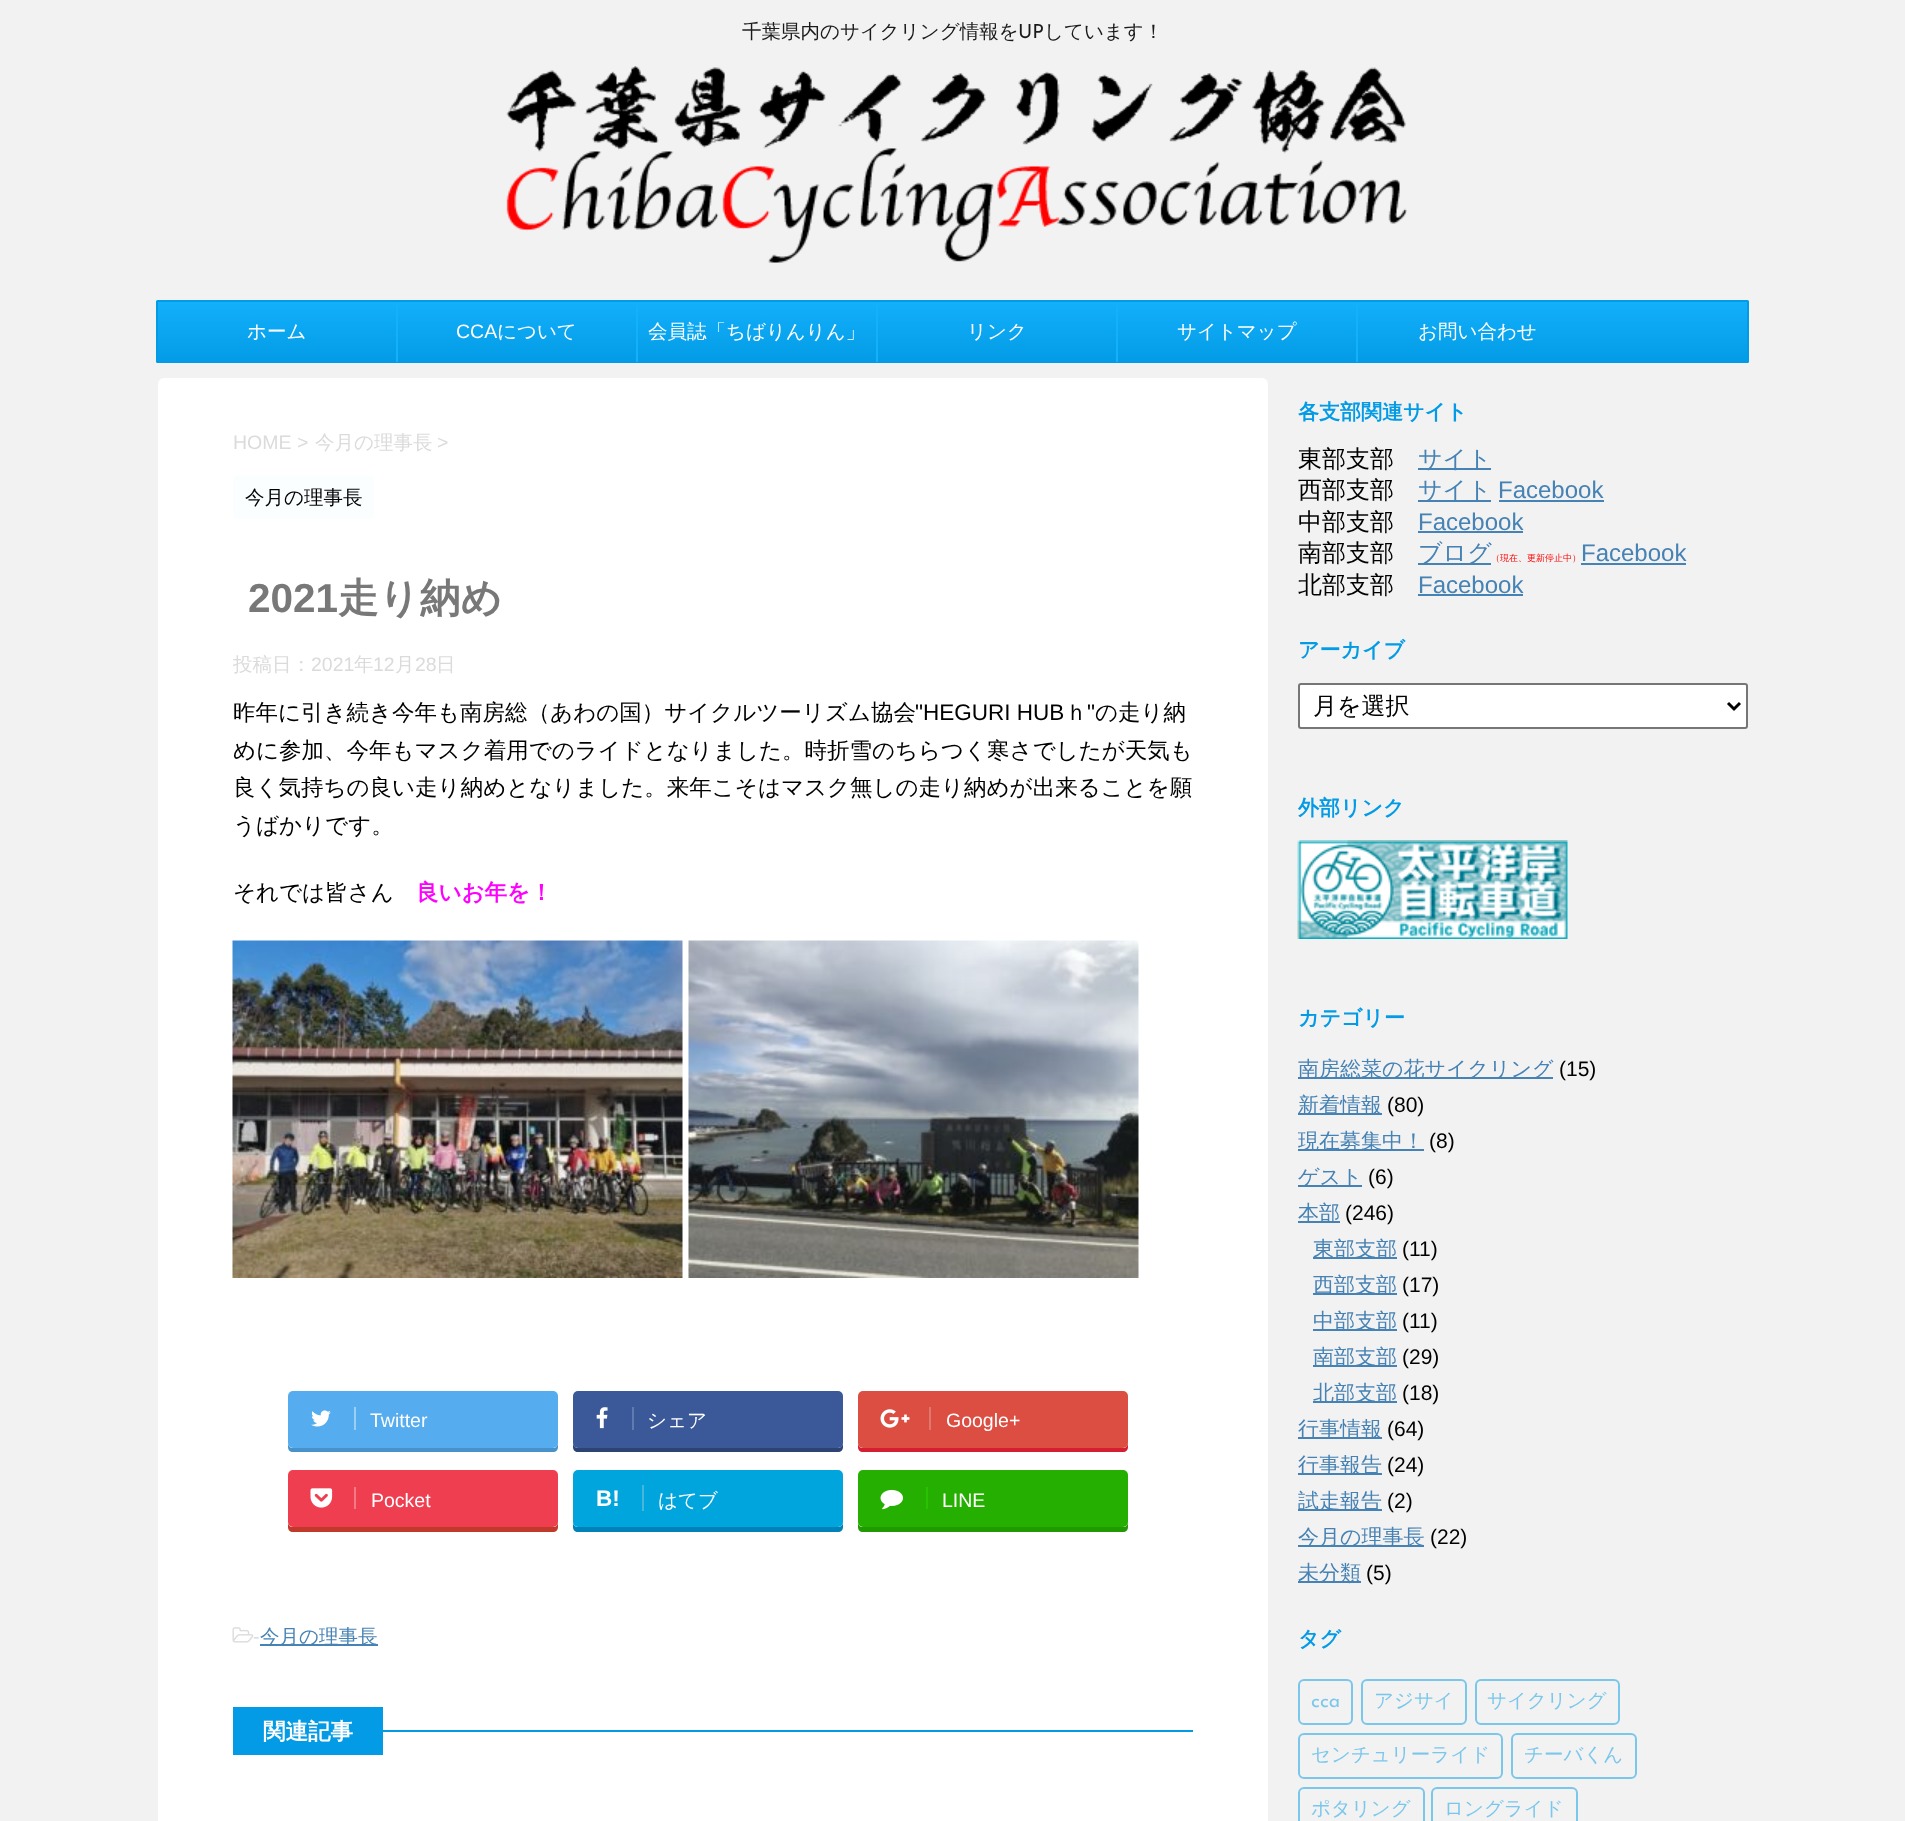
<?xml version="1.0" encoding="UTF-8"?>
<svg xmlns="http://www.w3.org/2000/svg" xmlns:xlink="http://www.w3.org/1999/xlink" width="1905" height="1821">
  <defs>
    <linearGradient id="g1" gradientUnits="userSpaceOnUse" x1="953" y1="301" x2="953" y2="362"><stop offset="0" stop-color="#13b0fc" /><stop offset="1" stop-color="#039be5" /></linearGradient>
  </defs>
  <rect width="100%" height="100%" fill="#f2f2f2" />
  <image x="506" y="66" width="901" height="197" xlink:href="image1.png" />
  <rect x="156" y="302" width="1593" height="60" fill="url(#g1)" />
  <rect x="157" y="301" width="1591" height="61" rx="0.5" fill="none" stroke="#039be5" stroke-width="2" />
  <rect x="396" y="302" width="2" height="60" fill="#13b0fc" />
  <rect x="636" y="302" width="2" height="60" fill="#13b0fc" />
  <rect x="876" y="302" width="2" height="60" fill="#13b0fc" />
  <rect x="1116" y="302" width="2" height="60" fill="#13b0fc" />
  <rect x="1356" y="302" width="2" height="60" fill="#13b0fc" />
  <rect x="158" y="378" width="1110" height="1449" rx="6" fill="#ffffff" />
  <rect x="233" y="476" width="141" height="43" rx="3" fill="#fbfeff" />
  <image x="232" y="940" width="451" height="338" xlink:href="image2.png" />
  <image x="688" y="940" width="451" height="338" xlink:href="image3.png" />
  <path d="M 288 1443 v 4 c 0 3 2 5 5 5 h 260 c 3 0 5 -2 5 -5 v -4 c 0 2 -2 5 -4 5 h -262 c -2 0 -4 -3 -4 -5 z" fill="#4892cb" />
  <rect x="288" y="1391" width="270" height="57" rx="5" fill="#55acee" />
  <rect x="354" y="1407" width="2" height="23" fill="#9acff4" />
  <image x="311" y="1410" width="20" height="17" xlink:href="image4.png" />
  <path d="M 573 1443 v 4 c 0 3 2 5 5 5 h 260 c 3 0 5 -2 5 -5 v -4 c 0 2 -2 5 -5 5 h -260 c -3 0 -5 -3 -5 -5 z" fill="#2c4373" />
  <rect x="573" y="1391" width="270" height="57" rx="5" fill="#3b5998" />
  <rect x="632" y="1407" width="2" height="23" fill="#607bb2" />
  <image x="596" y="1407" width="12" height="22" xlink:href="image5.png" />
  <path d="M 858 1443 v 4 c 0 3 2 5 5 5 h 260 c 3 0 5 -2 5 -5 v -4 c 0 2 -2 5 -4 5 h -262 c -2 0 -4 -3 -4 -5 z" fill="#d51e31" />
  <rect x="858" y="1391" width="270" height="57" rx="5" fill="#dc4e41" />
  <rect x="929" y="1407" width="2" height="23" fill="#e0776d" />
  <image x="880" y="1409" width="30" height="19" xlink:href="image6.png" />
  <path d="M 288 1522 v 5 c 0 3 2 5 5 5 h 260 c 3 0 5 -2 5 -5 v -5 c 0 3 -2 5 -4 5 h -262 c -2 0 -4 -2 -4 -5 z" fill="#c0392b" />
  <rect x="288" y="1470" width="270" height="57" rx="5" fill="#f03e51" />
  <rect x="354" y="1487" width="2" height="22" fill="#f27985" />
  <image x="310" y="1488" width="23" height="20" xlink:href="image7.png" />
  <path d="M 573 1522 v 5 c 0 3 2 5 5 5 h 260 c 3 0 5 -2 5 -5 v -5 c 0 3 -2 5 -5 5 h -260 c -3 0 -5 -2 -5 -5 z" fill="#0081b8" />
  <rect x="573" y="1470" width="270" height="57" rx="5" fill="#00a5de" />
  <rect x="642" y="1485" width="2" height="26" fill="#48b6db" />
  <path d="M 858 1522 v 5 c 0 3 2 5 5 5 h 260 c 3 0 5 -2 5 -5 v -5 c 0 3 -2 5 -4 5 h -262 c -2 0 -4 -2 -4 -5 z" fill="#219900" />
  <rect x="858" y="1470" width="270" height="57" rx="5" fill="#25af00" />
  <rect x="926" y="1487" width="2" height="22" fill="#29c200" />
  <image x="880" y="1489" width="23" height="21" xlink:href="image8.png" />
  <image x="232" y="1627" width="22" height="16" xlink:href="image9.png" />
  <rect x="260" y="1644" width="118" height="2" fill="#4682b4" />
  <rect x="383" y="1730" width="810" height="2" fill="#039be5" />
  <rect x="233" y="1707" width="150" height="48" fill="#039be5" />
  <rect x="1418" y="468" width="73" height="2" fill="#4682b4" />
  <rect x="1418" y="500" width="73" height="2" fill="#4682b4" />
  <rect x="1499" y="500" width="105" height="2" fill="#4682b4" />
  <rect x="1418" y="531" width="105" height="2" fill="#4682b4" />
  <rect x="1418" y="563" width="73" height="2" fill="#4682b4" />
  <rect x="1581" y="563" width="105" height="2" fill="#4682b4" />
  <rect x="1418" y="594" width="105" height="2" fill="#4682b4" />
  <rect x="1299" y="684" width="448" height="44" rx="2" fill="#ffffff" stroke="#767676" stroke-width="2" />
  <path d="M 1728 703 l 6 6 l 6 -6" fill="none" stroke="#000000" stroke-width="3" />
  <image x="1297" y="840" width="271" height="99" xlink:href="image10.png" />
  <rect x="1298" y="1077" width="255" height="2" fill="#4682b4" />
  <rect x="1298" y="1113" width="84" height="2" fill="#4682b4" />
  <rect x="1298" y="1149" width="126" height="2" fill="#4682b4" />
  <rect x="1298" y="1185" width="64" height="2" fill="#4682b4" />
  <rect x="1298" y="1221" width="42" height="2" fill="#4682b4" />
  <rect x="1313" y="1257" width="84" height="2" fill="#4682b4" />
  <rect x="1313" y="1293" width="84" height="2" fill="#4682b4" />
  <rect x="1313" y="1329" width="84" height="2" fill="#4682b4" />
  <rect x="1313" y="1365" width="84" height="2" fill="#4682b4" />
  <rect x="1313" y="1401" width="84" height="2" fill="#4682b4" />
  <rect x="1298" y="1437" width="84" height="2" fill="#4682b4" />
  <rect x="1298" y="1473" width="84" height="2" fill="#4682b4" />
  <rect x="1298" y="1509" width="84" height="2" fill="#4682b4" />
  <rect x="1298" y="1545" width="126" height="2" fill="#4682b4" />
  <rect x="1298" y="1581" width="63" height="2" fill="#4682b4" />
  <rect x="1299" y="1680" width="53" height="44" rx="5" fill="none" stroke="#7bc7ec" stroke-width="2" />
  <rect x="1362" y="1680" width="104" height="44" rx="5" fill="none" stroke="#7bc7ec" stroke-width="2" />
  <rect x="1476" y="1680" width="143" height="44" rx="5" fill="none" stroke="#7bc7ec" stroke-width="2" />
  <rect x="1299" y="1734" width="203" height="44" rx="5" fill="none" stroke="#7bc7ec" stroke-width="2" />
  <rect x="1512" y="1734" width="124" height="44" rx="5" fill="none" stroke="#7bc7ec" stroke-width="2" />
  <rect x="1299" y="1788" width="125" height="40" rx="5" fill="none" stroke="#7bc7ec" stroke-width="2" />
  <rect x="1432" y="1788" width="145" height="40" rx="5" fill="none" stroke="#7bc7ec" stroke-width="2" />
  <text x="742" y="38" style="font-family: WenQuanYi Zen Hei; font-size: 19.5px; font-weight: 500; fill: #1a1a1a">千葉県内のサイクリング情報を</text>
  <text x="1018" y="38" style="font-family: Josefin Sans; font-size: 19.5px; fill: #1a1a1a">UP</text>
  <text x="1044" y="38" style="font-family: WenQuanYi Zen Hei; font-size: 19.5px; font-weight: 500; fill: #1a1a1a">しています！</text>
  <text x="247" y="338" style="font-family: WenQuanYi Zen Hei; font-size: 19.5px; font-weight: 500; fill: #ffffff">ホーム</text>
  <text x="456" y="338" style="font-family: Liberation Sans; font-size: 19.5px; fill: #ffffff">CCA</text>
  <text x="497" y="338" style="font-family: WenQuanYi Zen Hei; font-size: 19.5px; font-weight: 500; fill: #ffffff">について</text>
  <text x="648" y="338" style="font-family: WenQuanYi Zen Hei; font-size: 19.5px; font-weight: 500; fill: #ffffff">会員誌「ちばりんりん」</text>
  <text x="967" y="338" style="font-family: WenQuanYi Zen Hei; font-size: 19.5px; font-weight: 500; fill: #ffffff">リンク</text>
  <text x="1177" y="338" style="font-family: WenQuanYi Zen Hei; font-size: 19.5px; font-weight: 500; fill: #ffffff">サイトマップ</text>
  <text x="1418" y="338" style="font-family: WenQuanYi Zen Hei; font-size: 19.5px; font-weight: 500; fill: #ffffff">お問い合わせ</text>
  <text x="233" y="449" style="font-family: Liberation Sans; font-size: 19.5px; fill: #dbdbdb">HOME &gt;</text>
  <text x="315" y="449" style="font-family: WenQuanYi Zen Hei; font-size: 19.5px; font-weight: 500; fill: #dbdbdb">今月の理事長</text>
  <text x="437" y="449" style="font-family: Liberation Sans; font-size: 19.5px; fill: #dbdbdb">&gt;</text>
  <text x="245" y="504" style="font-family: WenQuanYi Zen Hei; font-size: 19.5px; font-weight: 500; fill: #000000">今月の理事長</text>
  <text x="248" y="612" style="font-family: Liberation Sans; font-size: 40.5px; font-weight: bold; fill: #787878">2021</text>
  <text x="338" y="612" style="font-family: WenQuanYi Zen Hei; font-size: 40.5px; font-weight: bold; fill: #787878">走り納め</text>
  <text x="233" y="671" style="font-family: WenQuanYi Zen Hei; font-size: 19.5px; font-weight: 500; fill: #dbdbdb">投稿日：</text>
  <text x="311" y="671" style="font-family: Liberation Sans; font-size: 19.5px; fill: #dbdbdb">2021</text>
  <text x="354" y="671" style="font-family: WenQuanYi Zen Hei; font-size: 19.5px; font-weight: 500; fill: #dbdbdb">年</text>
  <text x="373" y="671" style="font-family: Liberation Sans; font-size: 19.5px; fill: #dbdbdb">12</text>
  <text x="395" y="671" style="font-family: WenQuanYi Zen Hei; font-size: 19.5px; font-weight: 500; fill: #dbdbdb">月</text>
  <text x="415" y="671" style="font-family: Liberation Sans; font-size: 19.5px; fill: #dbdbdb">28</text>
  <text x="436" y="671" style="font-family: WenQuanYi Zen Hei; font-size: 19.5px; font-weight: 500; fill: #dbdbdb">日</text>
  <text x="233" y="720" style="font-family: WenQuanYi Zen Hei; font-size: 22.5px; font-weight: 500; fill: #000000">昨年に引き続き今年も南房総（あわの国）サイクルツーリズム協会</text>
  <text x="915" y="720" style="font-family: Liberation Sans; font-size: 22.5px; fill: #000000">"HEGURI HUB</text>
  <text x="1065" y="720" style="font-family: WenQuanYi Zen Hei; font-size: 22.5px; font-weight: 500; fill: #000000">ｈ</text>
  <text x="1087" y="720" style="font-family: Liberation Sans; font-size: 22.5px; fill: #000000">"</text>
  <text x="1095" y="720" style="font-family: WenQuanYi Zen Hei; font-size: 22.5px; font-weight: 500; fill: #000000">の走り納</text>
  <text x="233" y="758" style="font-family: WenQuanYi Zen Hei; font-size: 22.5px; font-weight: 500; fill: #000000">めに参加、今年もマスク着用でのライドとなりました。時折雪のちらつく寒さでしたが天気も</text>
  <text x="233" y="795" style="font-family: WenQuanYi Zen Hei; font-size: 22.5px; font-weight: 500; fill: #000000">良く気持ちの良い走り納めとなりました。来年こそはマスク無しの走り納めが出来ることを願</text>
  <text x="233" y="833" style="font-family: WenQuanYi Zen Hei; font-size: 22.5px; font-weight: 500; fill: #000000">うばかりです。</text>
  <text x="233" y="900" style="font-family: WenQuanYi Zen Hei; font-size: 22.5px; font-weight: 500; fill: #000000">それでは皆さん</text>
  <text x="416" y="900" style="font-family: WenQuanYi Zen Hei; font-size: 22.5px; font-weight: bold; fill: #ff00ff">良いお年を！</text>
  <text x="370" y="1427" style="font-family: Liberation Sans; font-size: 19.5px; fill: #ffffff">Twitter</text>
  <text x="647" y="1427" style="font-family: WenQuanYi Zen Hei; font-size: 19.5px; font-weight: 500; fill: #ffffff">シェア</text>
  <text x="946" y="1427" style="font-family: Liberation Sans; font-size: 19.5px; fill: #ffffff">Google+</text>
  <text x="371" y="1507" style="font-family: Liberation Sans; font-size: 19.5px; fill: #ffffff">Pocket</text>
  <text x="596" y="1506" style="font-family: Liberation Sans; font-size: 22.5px; font-weight: bold; fill: #ffffff">B!</text>
  <text x="658" y="1507" style="font-family: WenQuanYi Zen Hei; font-size: 19.5px; font-weight: 500; fill: #ffffff">はてブ</text>
  <text x="942" y="1507" style="font-family: Liberation Sans; font-size: 19.5px; fill: #ffffff">LINE</text>
  <text x="253" y="1643" style="font-family: Liberation Sans; font-size: 19.5px; fill: #dbdbdb">-</text>
  <text x="260" y="1643" style="font-family: WenQuanYi Zen Hei; font-size: 19.5px; font-weight: 500; fill: #4682b4">今月の理事長</text>
  <text x="263" y="1739" style="font-family: WenQuanYi Zen Hei; font-size: 22.5px; font-weight: bold; fill: #ffffff">関連記事</text>
  <text x="1298" y="419" style="font-family: WenQuanYi Zen Hei; font-size: 21px; font-weight: bold; fill: #039be5">各支部関連サイト</text>
  <text x="1298" y="467" style="font-family: WenQuanYi Zen Hei; font-size: 24px; font-weight: 500; fill: #000000">東部支部</text>
  <text x="1418" y="467" style="font-family: WenQuanYi Zen Hei; font-size: 24px; font-weight: 500; fill: #4682b4">サイト</text>
  <text x="1298" y="498" style="font-family: WenQuanYi Zen Hei; font-size: 24px; font-weight: 500; fill: #000000">西部支部</text>
  <text x="1418" y="498" style="font-family: WenQuanYi Zen Hei; font-size: 24px; font-weight: 500; fill: #4682b4">サイト</text>
  <text x="1498" y="498" style="font-family: Liberation Sans; font-size: 24px; fill: #4682b4">Facebook</text>
  <text x="1298" y="530" style="font-family: WenQuanYi Zen Hei; font-size: 24px; font-weight: 500; fill: #000000">中部支部</text>
  <text x="1418" y="530" style="font-family: Liberation Sans; font-size: 24px; fill: #4682b4">Facebook</text>
  <text x="1298" y="561" style="font-family: WenQuanYi Zen Hei; font-size: 24px; font-weight: 500; fill: #000000">南部支部</text>
  <text x="1418" y="561" style="font-family: WenQuanYi Zen Hei; font-size: 24px; font-weight: 500; fill: #4682b4">ブログ</text>
  <text x="1491" y="561" style="font-family: WenQuanYi Zen Hei; font-size: 9px; font-weight: 500; fill: #ff0000">（現在、更新停止中）</text>
  <text x="1581" y="561" style="font-family: Liberation Sans; font-size: 24px; fill: #4682b4">Facebook</text>
  <text x="1298" y="593" style="font-family: WenQuanYi Zen Hei; font-size: 24px; font-weight: 500; fill: #000000">北部支部</text>
  <text x="1418" y="593" style="font-family: Liberation Sans; font-size: 24px; fill: #4682b4">Facebook</text>
  <text x="1298" y="657" style="font-family: WenQuanYi Zen Hei; font-size: 21px; font-weight: bold; fill: #039be5">アーカイブ</text>
  <text x="1313" y="714" style="font-family: WenQuanYi Zen Hei; font-size: 24px; font-weight: 500; fill: #000000">月を選択</text>
  <text x="1298" y="815" style="font-family: WenQuanYi Zen Hei; font-size: 21px; font-weight: bold; fill: #039be5">外部リンク</text>
  <text x="1298" y="1025" style="font-family: WenQuanYi Zen Hei; font-size: 21px; font-weight: bold; fill: #039be5">カテゴリー</text>
  <text x="1298" y="1076" style="font-family: WenQuanYi Zen Hei; font-size: 21px; font-weight: 500; fill: #4682b4">南房総菜の花サイクリング</text>
  <text x="1559" y="1076" style="font-family: Liberation Sans; font-size: 21px; fill: #000000">(15)</text>
  <text x="1298" y="1112" style="font-family: WenQuanYi Zen Hei; font-size: 21px; font-weight: 500; fill: #4682b4">新着情報</text>
  <text x="1387" y="1112" style="font-family: Liberation Sans; font-size: 21px; fill: #000000">(80)</text>
  <text x="1298" y="1148" style="font-family: WenQuanYi Zen Hei; font-size: 21px; font-weight: 500; fill: #4682b4">現在募集中！</text>
  <text x="1429" y="1148" style="font-family: Liberation Sans; font-size: 21px; fill: #000000">(8)</text>
  <text x="1298" y="1184" style="font-family: WenQuanYi Zen Hei; font-size: 21px; font-weight: 500; fill: #4682b4">ゲスト</text>
  <text x="1368" y="1184" style="font-family: Liberation Sans; font-size: 21px; fill: #000000">(6)</text>
  <text x="1298" y="1220" style="font-family: WenQuanYi Zen Hei; font-size: 21px; font-weight: 500; fill: #4682b4">本部</text>
  <text x="1345" y="1220" style="font-family: Liberation Sans; font-size: 21px; fill: #000000">(246)</text>
  <text x="1313" y="1256" style="font-family: WenQuanYi Zen Hei; font-size: 21px; font-weight: 500; fill: #4682b4">東部支部</text>
  <text x="1402" y="1256" style="font-family: Liberation Sans; font-size: 21px; fill: #000000">(11)</text>
  <text x="1313" y="1292" style="font-family: WenQuanYi Zen Hei; font-size: 21px; font-weight: 500; fill: #4682b4">西部支部</text>
  <text x="1402" y="1292" style="font-family: Liberation Sans; font-size: 21px; fill: #000000">(17)</text>
  <text x="1313" y="1328" style="font-family: WenQuanYi Zen Hei; font-size: 21px; font-weight: 500; fill: #4682b4">中部支部</text>
  <text x="1402" y="1328" style="font-family: Liberation Sans; font-size: 21px; fill: #000000">(11)</text>
  <text x="1313" y="1364" style="font-family: WenQuanYi Zen Hei; font-size: 21px; font-weight: 500; fill: #4682b4">南部支部</text>
  <text x="1402" y="1364" style="font-family: Liberation Sans; font-size: 21px; fill: #000000">(29)</text>
  <text x="1313" y="1400" style="font-family: WenQuanYi Zen Hei; font-size: 21px; font-weight: 500; fill: #4682b4">北部支部</text>
  <text x="1402" y="1400" style="font-family: Liberation Sans; font-size: 21px; fill: #000000">(18)</text>
  <text x="1298" y="1436" style="font-family: WenQuanYi Zen Hei; font-size: 21px; font-weight: 500; fill: #4682b4">行事情報</text>
  <text x="1387" y="1436" style="font-family: Liberation Sans; font-size: 21px; fill: #000000">(64)</text>
  <text x="1298" y="1472" style="font-family: WenQuanYi Zen Hei; font-size: 21px; font-weight: 500; fill: #4682b4">行事報告</text>
  <text x="1387" y="1472" style="font-family: Liberation Sans; font-size: 21px; fill: #000000">(24)</text>
  <text x="1298" y="1508" style="font-family: WenQuanYi Zen Hei; font-size: 21px; font-weight: 500; fill: #4682b4">試走報告</text>
  <text x="1387" y="1508" style="font-family: Liberation Sans; font-size: 21px; fill: #000000">(2)</text>
  <text x="1298" y="1544" style="font-family: WenQuanYi Zen Hei; font-size: 21px; font-weight: 500; fill: #4682b4">今月の理事長</text>
  <text x="1430" y="1544" style="font-family: Liberation Sans; font-size: 21px; fill: #000000">(22)</text>
  <text x="1298" y="1580" style="font-family: WenQuanYi Zen Hei; font-size: 21px; font-weight: 500; fill: #4682b4">未分類</text>
  <text x="1366" y="1580" style="font-family: Liberation Sans; font-size: 21px; fill: #000000">(5)</text>
  <text x="1298" y="1646" style="font-family: WenQuanYi Zen Hei; font-size: 21px; font-weight: bold; fill: #039be5">タグ</text>
  <text x="1311" y="1707" style="font-family: Josefin Sans; font-size: 19.5px; fill: #7bc7ec">cca</text>
  <text x="1374" y="1707" style="font-family: WenQuanYi Zen Hei; font-size: 19.5px; font-weight: 500; fill: #7bc7ec">アジサイ</text>
  <text x="1487" y="1707" style="font-family: WenQuanYi Zen Hei; font-size: 19.5px; font-weight: 500; fill: #7bc7ec">サイクリング</text>
  <text x="1311" y="1761" style="font-family: WenQuanYi Zen Hei; font-size: 19.5px; font-weight: 500; fill: #7bc7ec">センチュリーライド</text>
  <text x="1524" y="1761" style="font-family: WenQuanYi Zen Hei; font-size: 19.5px; font-weight: 500; fill: #7bc7ec">チーバくん</text>
  <text x="1311" y="1815" style="font-family: WenQuanYi Zen Hei; font-size: 19.5px; font-weight: 500; fill: #7bc7ec">ポタリング</text>
  <text x="1444" y="1815" style="font-family: WenQuanYi Zen Hei; font-size: 19.5px; font-weight: 500; fill: #7bc7ec">ロングライド</text>
</svg>
